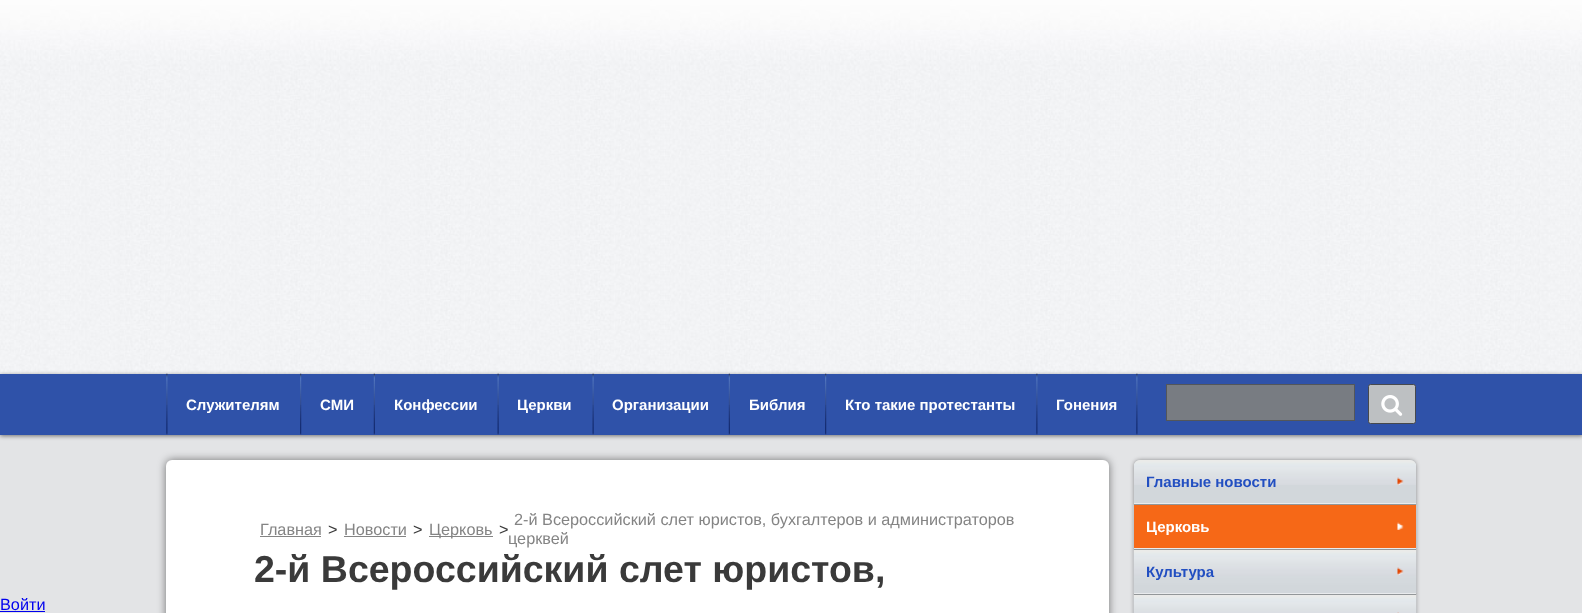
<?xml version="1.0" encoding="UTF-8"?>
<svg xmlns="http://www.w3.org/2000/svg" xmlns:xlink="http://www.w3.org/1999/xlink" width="1582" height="613">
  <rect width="100%" height="100%" fill="#ffffff" />
  <image x="0" y="0" width="1582" height="374" xlink:href="image1.png" />
  <rect y="435" width="1582" height="178" fill="#e3e4e6" />
  <rect y="375" width="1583" height="61" fill="#000000" fill-opacity="0.5" filter="blur(2px)" />
  <rect y="374" width="1582" height="61" fill="#2f52a9" />
  <image x="166" y="373" width="2" height="62" xlink:href="image2.png" />
  <image x="300" y="373" width="2" height="62" xlink:href="image3.png" />
  <image x="373" y="373" width="2" height="62" xlink:href="image4.png" />
  <image x="497" y="373" width="2" height="62" xlink:href="image5.png" />
  <image x="592" y="373" width="2" height="62" xlink:href="image6.png" />
  <image x="728" y="373" width="2" height="62" xlink:href="image7.png" />
  <image x="825" y="373" width="2" height="62" xlink:href="image8.png" />
  <image x="1136" y="373" width="2" height="62" xlink:href="image9.png" />
  <image x="1036" y="373" width="2" height="62" xlink:href="image10.png" />
  <rect x="1166.5" y="384.5" width="188" height="36" fill="#787c82" stroke="#53565a" />
  <rect x="1368.5" y="384.5" width="47" height="39" rx="2" fill="#bdc0c2" stroke="#47494d" />
  <image x="1381" y="395" width="22" height="21" xlink:href="image11.png" />
  <rect x="166" y="460" width="943" height="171" rx="6" fill="#000000" fill-opacity="0.5" filter="blur(4px)" />
  <rect x="166" y="460" width="943" height="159" rx="6" fill="#ffffff" />
  <rect x="260" y="536" width="61" height="1" fill="#848484" />
  <rect x="344" y="536" width="62" height="1" fill="#848484" />
  <rect x="429" y="536" width="64" height="1" fill="#848484" />
  <rect x="1134" y="460" width="282" height="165" rx="6" fill="#000000" fill-opacity="0.4" filter="blur(2px)" />
  <path d="M 1140 460 h 270 c 3.5 0 6 2.5 6 6 v 38 h -282 v -38 c 0 -3.5 2.5 -6 6 -6 z" fill="#d2d7db" />
  <image x="1134" y="460" width="282" height="25" xlink:href="image12.png" />
  <rect x="1134" y="503" width="282" height="1" fill="#e9ebed" />
  <image x="1397" y="477" width="7" height="8" xlink:href="image13.png" />
  <image x="1133" y="505" width="284" height="43" xlink:href="image14.png" />
  <rect x="1134" y="504" width="282" height="1" fill="#939799" />
  <rect x="1134" y="548" width="282" height="1" fill="#e9ebed" />
  <rect x="1134" y="505" width="282" height="43" fill="#f66817" />
  <image x="1397" y="522" width="7" height="8" xlink:href="image15.png" />
  <image x="1133" y="550" width="284" height="43" xlink:href="image14.png" />
  <rect x="1134" y="549" width="282" height="1" fill="#939799" />
  <rect x="1134" y="593" width="282" height="1" fill="#e9ebed" />
  <image x="1397" y="567" width="7" height="8" xlink:href="image13.png" />
  <image x="1133" y="595" width="284" height="18" xlink:href="image16.png" />
  <rect x="1134" y="594" width="282" height="1" fill="#939799" />
  <image x="1397" y="612" width="2" height="1" xlink:href="image17.png" />
  <rect y="611" width="45" height="1" fill="#0000ee" />
  <text x="186" y="410" style="font-family: Liberation Sans; font-size: 15px; font-weight: bold; fill: #ffffff">Служителям</text>
  <text x="320" y="410" style="font-family: Liberation Sans; font-size: 15px; font-weight: bold; fill: #ffffff">СМИ</text>
  <text x="394" y="410" style="font-family: Liberation Sans; font-size: 15px; font-weight: bold; fill: #ffffff">Конфессии</text>
  <text x="517" y="410" style="font-family: Liberation Sans; font-size: 15px; font-weight: bold; fill: #ffffff">Церкви</text>
  <text x="612" y="410" style="font-family: Liberation Sans; font-size: 15px; font-weight: bold; fill: #ffffff">Организации</text>
  <text x="749" y="410" style="font-family: Liberation Sans; font-size: 15px; font-weight: bold; fill: #ffffff">Библия</text>
  <text x="845" y="410" style="font-family: Liberation Sans; font-size: 15px; font-weight: bold; fill: #ffffff">Кто такие протестанты</text>
  <text x="1056" y="410" style="font-family: Liberation Sans; font-size: 15px; font-weight: bold; fill: #ffffff">Гонения</text>
  <text x="260" y="535" style="font-family: Liberation Sans; font-size: 16.25px; fill: #848484">Главная</text>
  <text x="328" y="535" style="font-family: Liberation Sans; font-size: 16.25px; fill: #3a3a3a">&gt;</text>
  <text x="344" y="535" style="font-family: Liberation Sans; font-size: 16.25px; fill: #848484">Новости</text>
  <text x="413" y="535" style="font-family: Liberation Sans; font-size: 16.25px; fill: #3a3a3a">&gt;</text>
  <text x="429" y="535" style="font-family: Liberation Sans; font-size: 16.25px; fill: #848484">Церковь</text>
  <text x="499" y="535" style="font-family: Liberation Sans; font-size: 16.25px; fill: #3a3a3a">&gt;</text>
  <text x="514" y="525" style="font-family: Liberation Sans; font-size: 16.25px; fill: #848484">2-й Всероссийский слет юристов, бухгалтеров и администраторов</text>
  <text x="508" y="544" style="font-family: Liberation Sans; font-size: 16.25px; fill: #848484">церквей</text>
  <text x="254" y="582" style="font-family: Liberation Sans; font-size: 37.5px; font-weight: bold; fill: #3a3a3a">2-й Всероссийский слет юристов,</text>
  <text x="1146" y="487" style="font-family: Liberation Sans; font-size: 15px; font-weight: bold; fill: #224fc1">Главные новости</text>
  <text x="1146" y="532" style="font-family: Liberation Sans; font-size: 15px; font-weight: bold; fill: #ffffff">Церковь</text>
  <text x="1146" y="577" style="font-family: Liberation Sans; font-size: 15px; font-weight: bold; fill: #224fc1">Культура</text>
  <text x="0" y="610" style="font-family: Liberation Sans; font-size: 16.25px; fill: #0000ee">Войти</text>
</svg>
